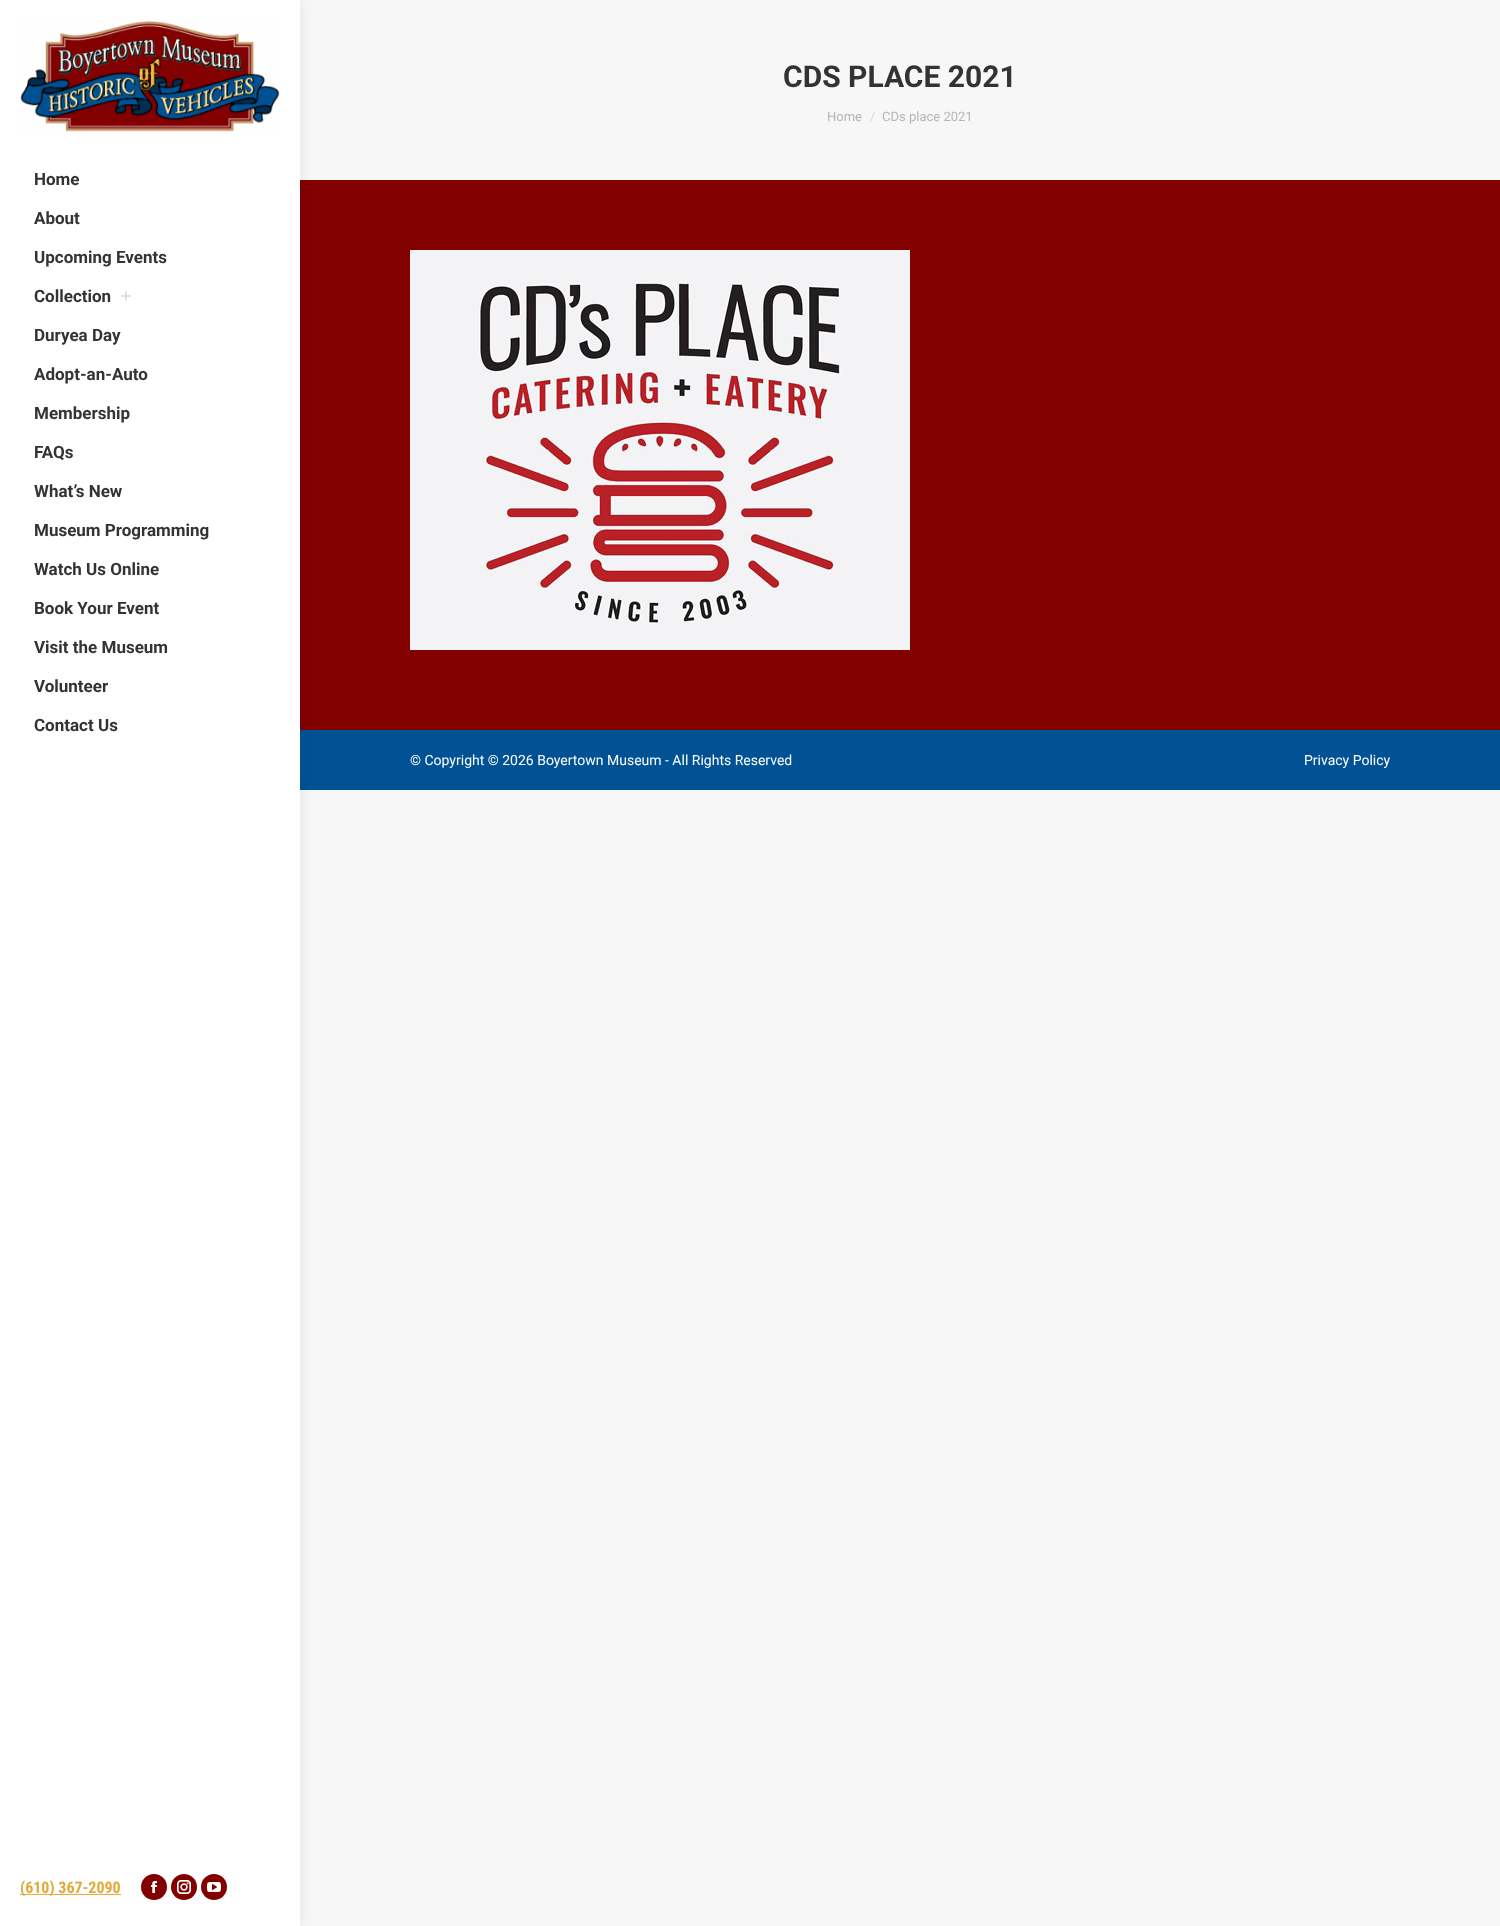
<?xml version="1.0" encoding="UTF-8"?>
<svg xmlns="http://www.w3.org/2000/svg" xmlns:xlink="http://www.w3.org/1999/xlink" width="1500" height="1926">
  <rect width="100%" height="100%" fill="#f7f7f7" />
  <rect x="300" y="180" width="1200" height="550" fill="#820000" />
  <rect x="300" y="730" width="1200" height="60" fill="#005295" />
  <rect x="-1" y="-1" width="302" height="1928" fill="#000000" fill-opacity="0.07" filter="blur(7.5px)" />
  <rect width="300" height="1926" fill="#ffffff" />
  <image x="20" y="20" width="260" height="112" xlink:href="image1.png" />
  <image x="121" y="291" width="10" height="10" xlink:href="image2.png" />
  <rect x="20" y="1894" width="101" height="1" fill="#e1aa39" />
  <circle cx="154" cy="1887" r="13" fill="#820000" />
  <image x="151" y="1881" width="6" height="12" xlink:href="image3.png" />
  <circle cx="184" cy="1887" r="13" fill="#820000" />
  <image x="177" y="1880" width="14" height="14" xlink:href="image4.png" />
  <circle cx="214" cy="1887" r="13" fill="#820000" />
  <image x="207" y="1882" width="14" height="10" xlink:href="image5.png" />
  <image x="410" y="250" width="500" height="400" xlink:href="image6.png" />
  <text x="783" y="87" style="font-family: Roboto; font-size: 30px; font-weight: bold; fill: #333333">CDS PLACE 2021</text>
  <text x="827" y="121" style="font-family: Roboto; font-size: 13px; fill: #b4b5bb">Home</text>
  <text x="870" y="121" style="font-family: Roboto; font-size: 13px; fill: #d6d6d9">/</text>
  <text x="882" y="121" style="font-family: Roboto; font-size: 13px; fill: #b4b5bb">CDs place 2021</text>
  <text x="34" y="185" style="font-family: Roboto; font-size: 17px; font-weight: bold; fill: #333333">Home</text>
  <text x="34" y="224" style="font-family: Roboto; font-size: 17px; font-weight: bold; fill: #333333">About</text>
  <text x="34" y="263" style="font-family: Roboto; font-size: 17px; font-weight: bold; fill: #333333">Upcoming Events</text>
  <text x="34" y="302" style="font-family: Roboto; font-size: 17px; font-weight: bold; fill: #333333">Collection</text>
  <text x="34" y="341" style="font-family: Roboto; font-size: 17px; font-weight: bold; fill: #333333">Duryea Day</text>
  <text x="34" y="380" style="font-family: Roboto; font-size: 17px; font-weight: bold; fill: #333333">Adopt-an-Auto</text>
  <text x="34" y="419" style="font-family: Roboto; font-size: 17px; font-weight: bold; fill: #333333">Membership</text>
  <text x="34" y="458" style="font-family: Roboto; font-size: 17px; font-weight: bold; fill: #333333">FAQs</text>
  <text x="34" y="497" style="font-family: Roboto; font-size: 17px; font-weight: bold; fill: #333333">What’s New</text>
  <text x="34" y="536" style="font-family: Roboto; font-size: 17px; font-weight: bold; fill: #333333">Museum Programming</text>
  <text x="34" y="575" style="font-family: Roboto; font-size: 17px; font-weight: bold; fill: #333333">Watch Us Online</text>
  <text x="34" y="614" style="font-family: Roboto; font-size: 17px; font-weight: bold; fill: #333333">Book Your Event</text>
  <text x="34" y="653" style="font-family: Roboto; font-size: 17px; font-weight: bold; fill: #333333">Visit the Museum</text>
  <text x="34" y="692" style="font-family: Roboto; font-size: 17px; font-weight: bold; fill: #333333">Volunteer</text>
  <text x="34" y="731" style="font-family: Roboto; font-size: 17px; font-weight: bold; fill: #333333">Contact Us</text>
  <text x="20" y="1893" style="font-family: Roboto Condensed; font-size: 16px; font-weight: bold; fill: #e1aa39">(610) 367-2090</text>
  <text x="410" y="765" style="font-family: Roboto; font-size: 14px; fill: #ffffff">© Copyright © 2026 Boyertown Museum - All Rights Reserved</text>
  <text x="1304" y="765" style="font-family: Roboto; font-size: 14px; fill: #ffffff">Privacy Policy</text>
</svg>
